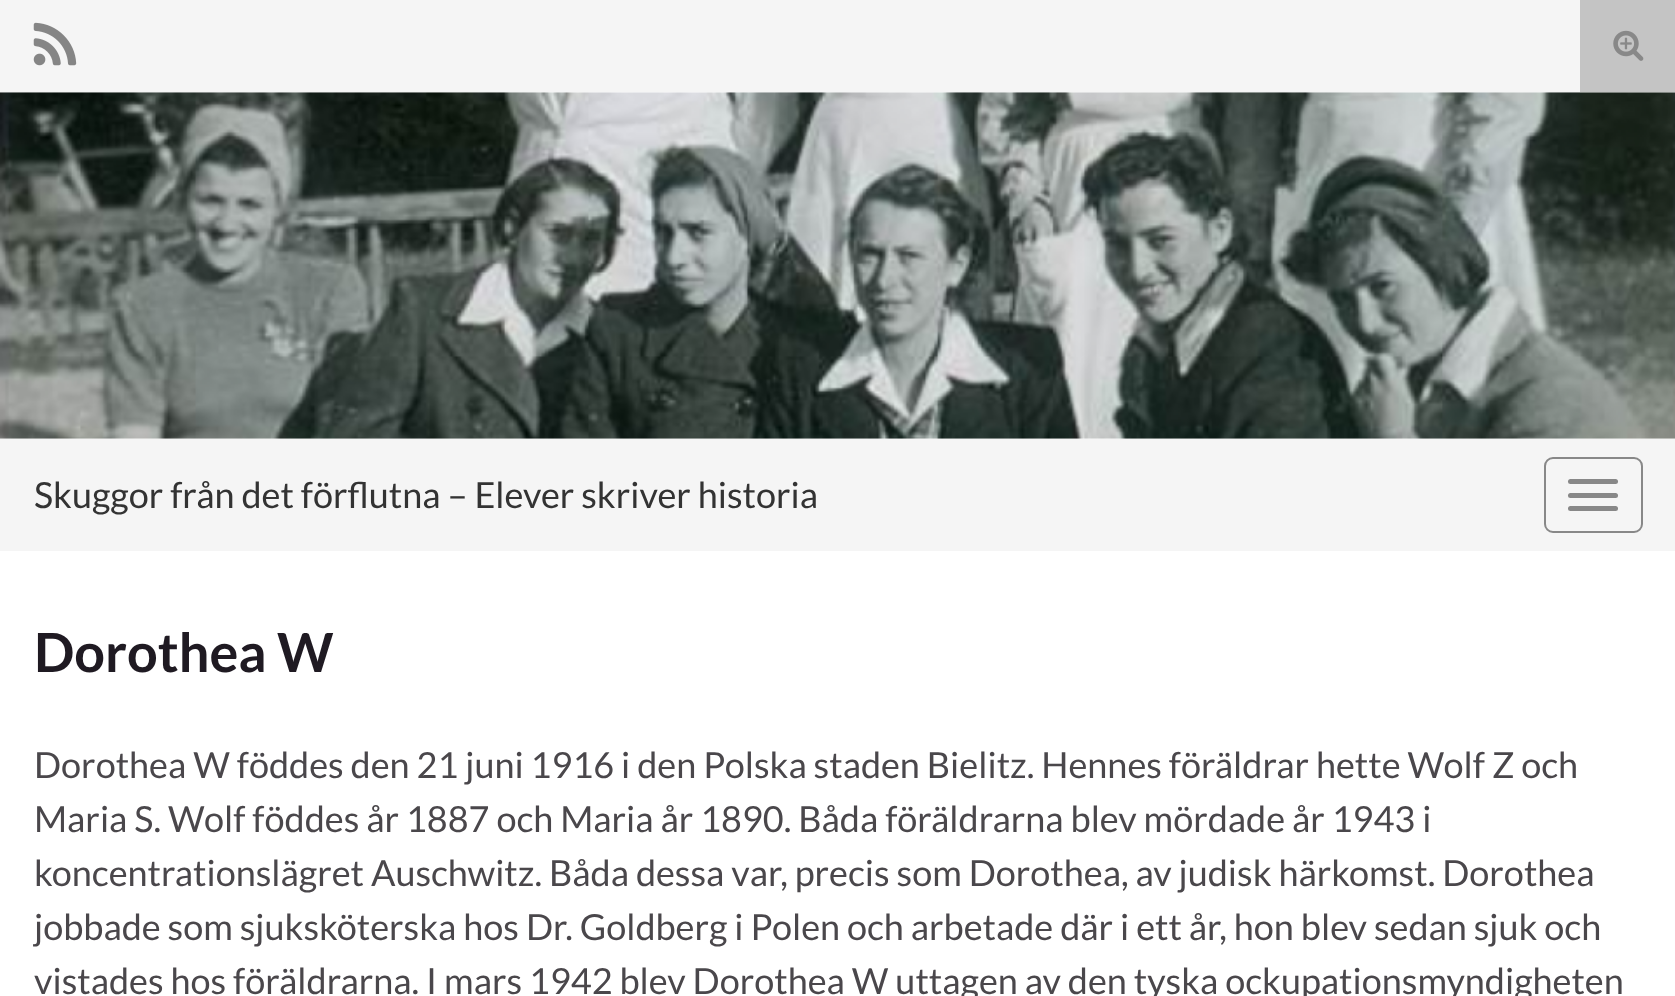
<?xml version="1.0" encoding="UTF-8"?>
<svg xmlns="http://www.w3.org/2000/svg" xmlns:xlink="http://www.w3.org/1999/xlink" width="1675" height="996">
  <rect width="100%" height="100%" fill="#f5f5f5" />
  <image x="33" y="22" width="44" height="44" xlink:href="image1.png" />
  <rect x="1580" width="95" height="92" fill="#c4c4c4" />
  <image x="1613" y="30" width="31" height="31" xlink:href="image2.png" />
  <rect y="92" width="1675" height="347" fill="#ffffff" />
  <image x="0" y="92" width="1675" height="347" xlink:href="image3.png" />
  <rect x="1545" y="458" width="97" height="74" rx="8" fill="none" stroke="#888888" stroke-width="2" />
  <rect x="1568" y="479" width="50" height="5" rx="2.5" fill="#888888" />
  <rect x="1568" y="493" width="50" height="5" rx="2.5" fill="#888888" />
  <rect x="1568" y="506" width="50" height="5" rx="2.5" fill="#888888" />
  <rect y="551" width="1675" height="445" fill="#ffffff" />
  <text x="34" y="508" style="font-family: Lato; font-size: 36px; fill: #333333">Skuggor från det förflutna – Elever skriver historia</text>
  <text x="34" y="672" style="font-family: Lato; font-size: 54px; font-weight: bold; fill: #1f1a22">Dorothea W</text>
  <text x="34" y="778" style="font-family: Lato; font-size: 36px; fill: #4a474b">Dorothea W föddes den 21 juni 1916 i den Polska staden Bielitz. Hennes föräldrar hette Wolf Z och</text>
  <text x="34" y="832" style="font-family: Lato; font-size: 36px; fill: #4a474b">Maria S. Wolf föddes år 1887 och Maria år 1890. Båda föräldrarna blev mördade år 1943 i</text>
  <text x="34" y="886" style="font-family: Lato; font-size: 36px; fill: #4a474b">koncentrationslägret Auschwitz. Båda dessa var, precis som Dorothea, av judisk härkomst. Dorothea</text>
  <text x="34" y="940" style="font-family: Lato; font-size: 36px; fill: #4a474b">jobbade som sjuksköterska hos Dr. Goldberg i Polen och arbetade där i ett år, hon blev sedan sjuk och</text>
  <text x="34" y="994" style="font-family: Lato; font-size: 36px; fill: #4a474b">vistades hos föräldrarna. I mars 1942 blev Dorothea W uttagen av den tyska ockupationsmyndigheten</text>
</svg>
